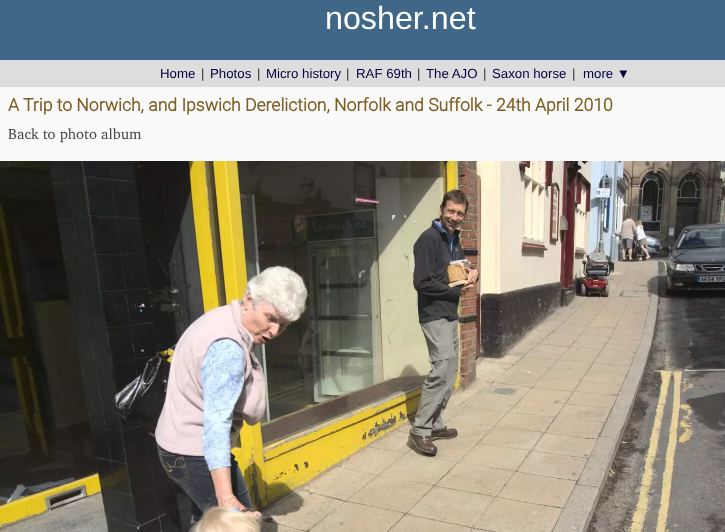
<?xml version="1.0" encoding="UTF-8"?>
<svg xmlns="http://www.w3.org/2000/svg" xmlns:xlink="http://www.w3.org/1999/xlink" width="725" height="532">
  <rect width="100%" height="100%" fill="#fafafa" />
  <rect width="725" height="60" fill="#416788" />
  <rect y="60" width="725" height="27" fill="#dddddd" />
  <image x="0" y="161" width="725" height="371" xlink:href="image1.png" />
  <text x="325" y="29" style="font-family: Liberation Sans; font-size: 32.25px; fill: #ffffff">nosher.net</text>
  <text x="160" y="78" style="font-family: Liberation Sans; font-size: 13.25px; fill: #000040">Home</text>
  <text x="201" y="78" style="font-family: Liberation Sans; font-size: 13.25px; fill: #333333">|</text>
  <text x="210" y="78" style="font-family: Liberation Sans; font-size: 13.25px; fill: #000040">Photos</text>
  <text x="257" y="78" style="font-family: Liberation Sans; font-size: 13.25px; fill: #333333">|</text>
  <text x="266" y="78" style="font-family: Liberation Sans; font-size: 13.25px; fill: #000040">Micro history</text>
  <text x="346" y="78" style="font-family: Liberation Sans; font-size: 13.25px; fill: #333333">|</text>
  <text x="356" y="78" style="font-family: Liberation Sans; font-size: 13.25px; fill: #000040">RAF 69th</text>
  <text x="417" y="78" style="font-family: Liberation Sans; font-size: 13.25px; fill: #333333">|</text>
  <text x="426" y="78" style="font-family: Liberation Sans; font-size: 13.25px; fill: #000040">The AJO</text>
  <text x="483" y="78" style="font-family: Liberation Sans; font-size: 13.25px; fill: #333333">|</text>
  <text x="492" y="78" style="font-family: Liberation Sans; font-size: 13.25px; fill: #000040">Saxon horse</text>
  <text x="572" y="78" style="font-family: Liberation Sans; font-size: 13.25px; fill: #333333">|</text>
  <text x="583" y="78" style="font-family: Liberation Sans; font-size: 13.25px; fill: #000040">more ▼</text>
  <text x="8" y="111" style="font-family: Roboto; font-size: 17.6px; font-weight: bold; fill: #7f5d21">A Trip to Norwich, and Ipswich Dereliction, Norfolk and Suffolk - 24th April 2010</text>
  <text x="8" y="139" style="font-family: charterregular; font-size: 14.75px; fill: #444444">Back to photo album</text>
</svg>
